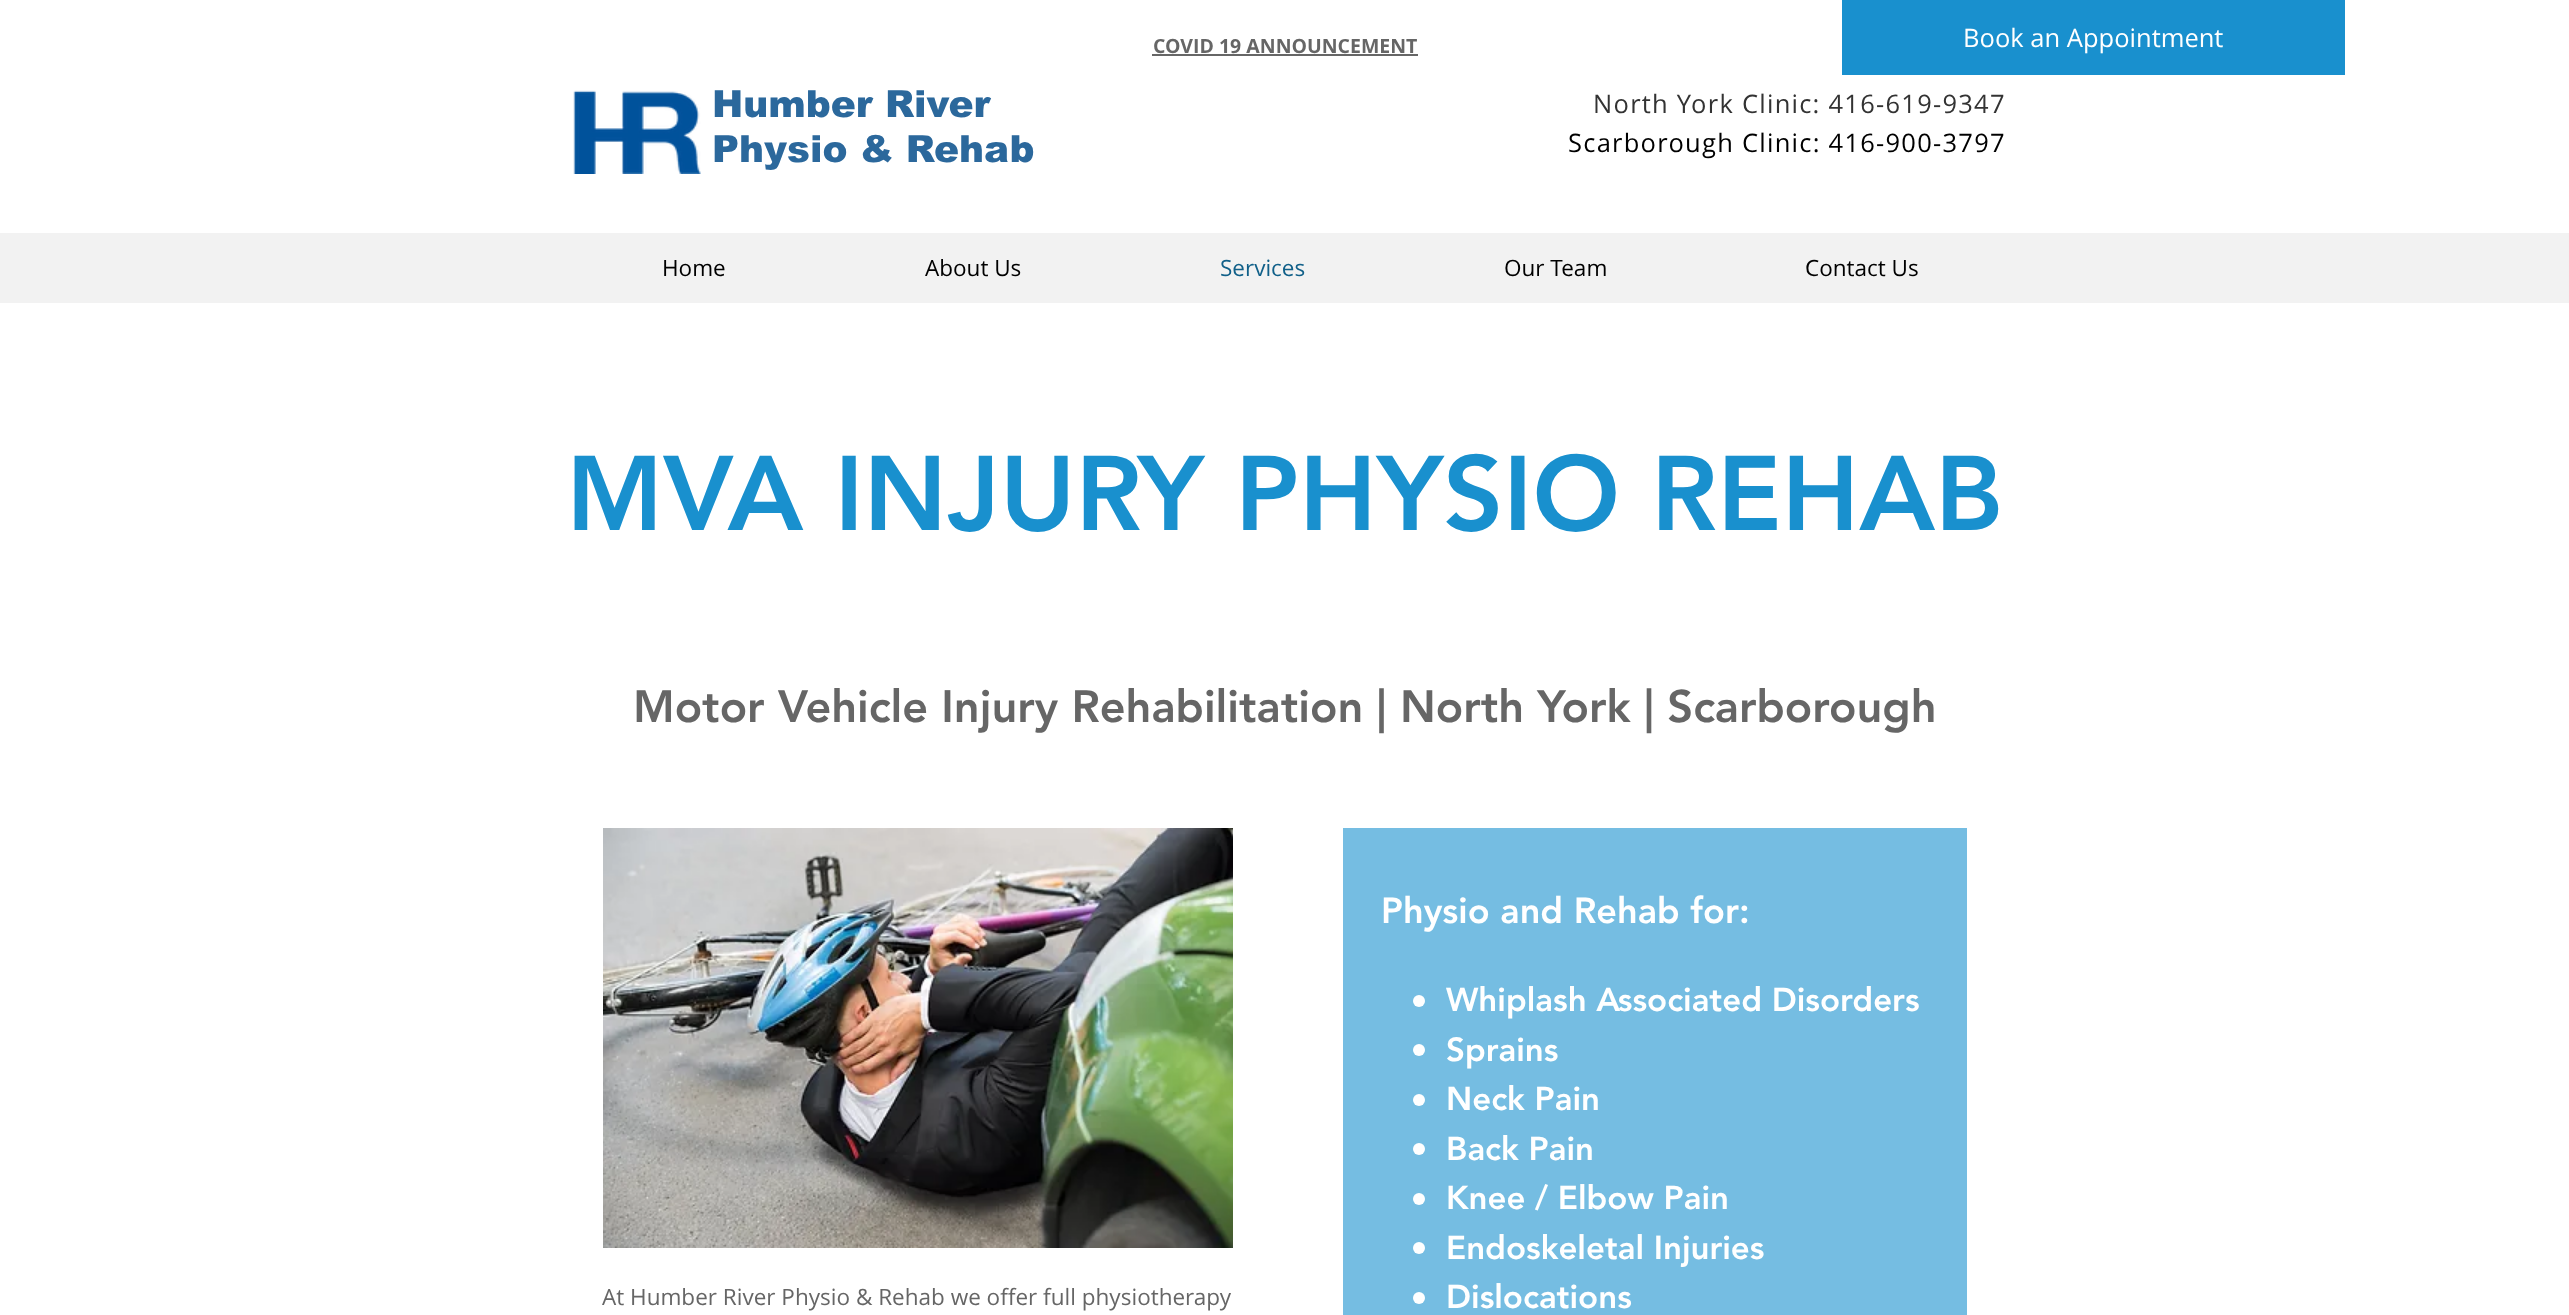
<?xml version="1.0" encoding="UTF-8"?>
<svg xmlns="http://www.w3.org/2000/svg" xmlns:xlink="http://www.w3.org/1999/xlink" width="2569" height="1315">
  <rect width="100%" height="100%" fill="#ffffff" />
  <rect x="1152" y="54" width="266" height="2" fill="#666666" />
  <image x="573" y="90" width="128" height="84" xlink:href="image1.png" />
  <rect y="233" width="2569" height="70" fill="#f2f2f2" />
  <rect x="1842" width="503" height="75" fill="#1990ce" />
  <image x="603" y="828" width="630" height="420" xlink:href="image2.png" />
  <rect x="1343" y="828" width="624" height="487" fill="#75bde2" />
  <circle cx="1419" cy="1001" r="6" fill="#ffffff" />
  <circle cx="1419" cy="1050" r="6" fill="#ffffff" />
  <circle cx="1419" cy="1100" r="6" fill="#ffffff" />
  <circle cx="1419" cy="1149" r="6" fill="#ffffff" />
  <circle cx="1419" cy="1199" r="6" fill="#ffffff" />
  <circle cx="1419" cy="1248" r="6" fill="#ffffff" />
  <circle cx="1419" cy="1298" r="6" fill="#ffffff" />
  <text x="1153" y="53" style="font-family: Open Sans; font-size: 19.5px; font-weight: bold; fill: #666666">COVID 19 ANNOUNCEMENT</text>
  <text x="712" y="117" style="font-family: arial; font-size: 37.5px; font-weight: 900; fill: #2b689c">Humber River</text>
  <text x="712" y="162" style="font-family: arial; font-size: 37.5px; font-weight: 900; fill: #2b689c">Physio &amp; Rehab</text>
  <text x="1593" y="113" style="font-family: Open Sans; font-size: 25.5px; letter-spacing: 1.25px; fill: #333333">North York Clinic: 416-619-9347</text>
  <text x="1568" y="152" style="font-family: Open Sans; font-size: 25.5px; letter-spacing: 1.25px; fill: #000000">Scarborough Clinic: 416-900-3797</text>
  <text x="662" y="276" style="font-family: Open Sans; font-size: 22.5px; fill: #000000">Home</text>
  <text x="925" y="276" style="font-family: Open Sans; font-size: 22.5px; fill: #000000">About Us</text>
  <text x="1220" y="276" style="font-family: Open Sans; font-size: 22.5px; fill: #116089">Services</text>
  <text x="1504" y="276" style="font-family: Open Sans; font-size: 22.5px; fill: #000000">Our Team</text>
  <text x="1805" y="276" style="font-family: Open Sans; font-size: 22.5px; fill: #000000">Contact Us</text>
  <text x="1963" y="47" style="font-family: Open Sans; font-size: 25.5px; fill: #ffffff">Book an Appointment</text>
  <text x="566" y="530" style="font-family: 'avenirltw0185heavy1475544'; font-size: 105px; font-weight: 900; fill: #1990ce">MVA INJURY PHYSIO REHAB</text>
  <text x="633" y="722" style="font-family: 'avenirltw0185heavy1475544'; font-size: 45px; font-weight: 900; fill: #666666">Motor Vehicle Injury Rehabilitation | North York | Scarborough</text>
  <text x="1381" y="923" style="font-family: 'avenirltw0185heavy1475544'; font-size: 36px; font-weight: 900; fill: #ffffff">Physio and Rehab for:</text>
  <text x="1446" y="1011" style="font-family: 'avenirltw0185heavy1475544'; font-size: 33px; font-weight: 900; fill: #ffffff">Whiplash Associated Disorders</text>
  <text x="1446" y="1061" style="font-family: 'avenirltw0185heavy1475544'; font-size: 33px; font-weight: 900; fill: #ffffff">Sprains</text>
  <text x="1446" y="1110" style="font-family: 'avenirltw0185heavy1475544'; font-size: 33px; font-weight: 900; fill: #ffffff">Neck Pain</text>
  <text x="1446" y="1160" style="font-family: 'avenirltw0185heavy1475544'; font-size: 33px; font-weight: 900; fill: #ffffff">Back Pain</text>
  <text x="1446" y="1209" style="font-family: 'avenirltw0185heavy1475544'; font-size: 33px; font-weight: 900; fill: #ffffff">Knee / Elbow Pain</text>
  <text x="1446" y="1259" style="font-family: 'avenirltw0185heavy1475544'; font-size: 33px; font-weight: 900; fill: #ffffff">Endoskeletal Injuries</text>
  <text x="1446" y="1308" style="font-family: 'avenirltw0185heavy1475544'; font-size: 33px; font-weight: 900; fill: #ffffff">Dislocations</text>
  <text x="602" y="1305" style="font-family: Open Sans; font-size: 22.5px; fill: #666666">At Humber River Physio &amp; Rehab we offer full physiotherapy</text>
</svg>
